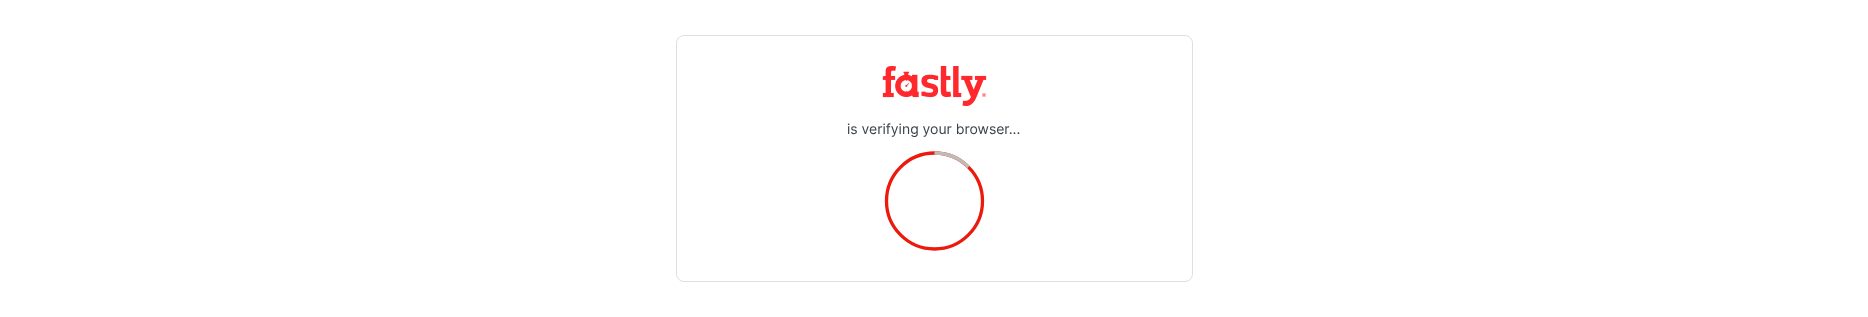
<?xml version="1.0" encoding="UTF-8"?>
<svg xmlns="http://www.w3.org/2000/svg" xmlns:xlink="http://www.w3.org/1999/xlink" width="1868" height="317">
  <rect width="100%" height="100%" fill="#ffffff" />
  <rect x="676.5" y="35.5" width="516" height="246" rx="7.5" fill="none" stroke="#dce0e4" />
  <image x="882" y="66" width="105" height="40" xlink:href="image1.png" />
  <path d="M 886.5 201 c 0 -26.5 21.5 -48 48 -48 c 26.5 0 48 21.5 48 48 c 0 26.5 -21.5 48 -48 48 c -26.5 0 -48 -21.5 -48 -48 z" fill="none" stroke="#eb1a0c" stroke-width="3.3" />
  <path d="M 968.5 167 c -9 -9 -21.5 -14 -34 -14" fill="none" stroke="#c2bab5" stroke-width="3.3" />
  <text x="847" y="134" style="font-family: Inter; font-size: 14px; fill: #3a424a">is verifying your browser...</text>
</svg>
